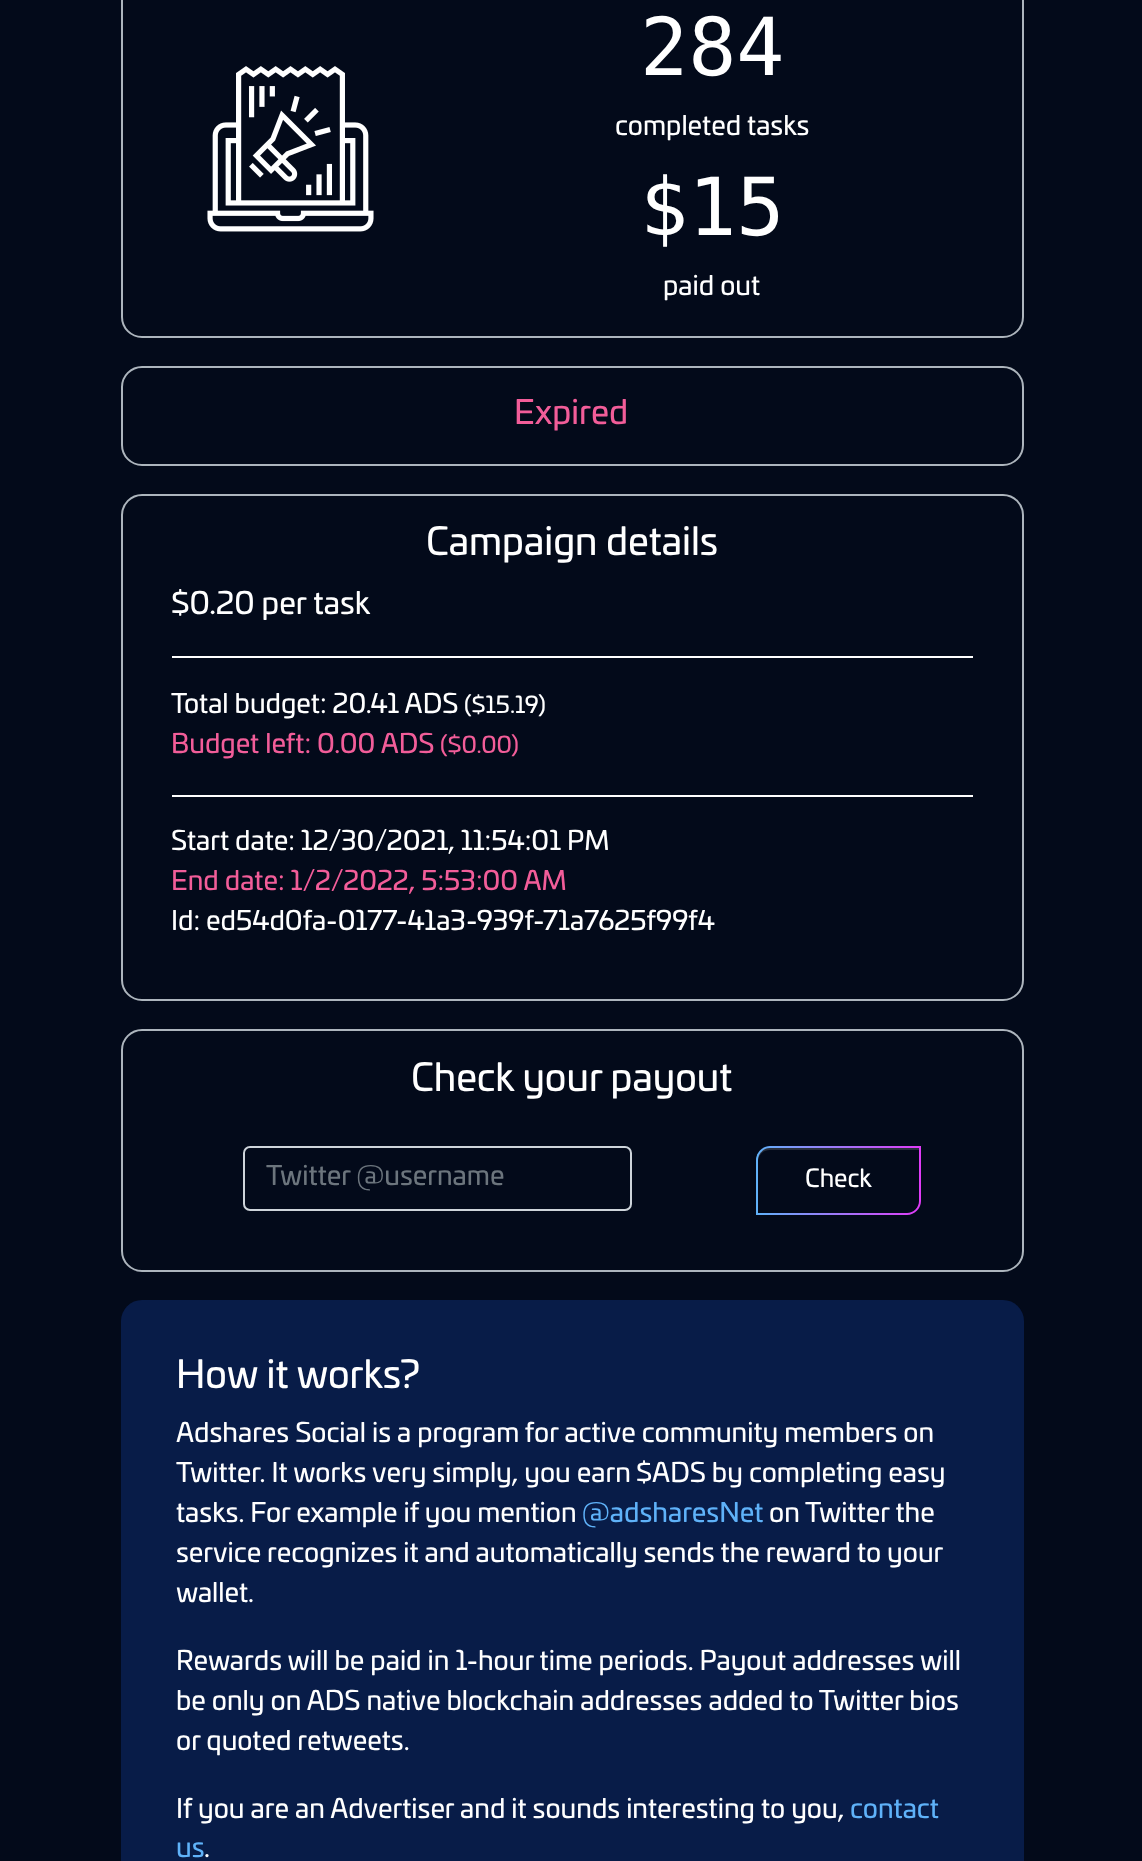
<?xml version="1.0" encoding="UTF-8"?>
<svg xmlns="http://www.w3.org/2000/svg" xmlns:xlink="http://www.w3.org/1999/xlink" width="1142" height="1861">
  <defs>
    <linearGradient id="g1" gradientUnits="userSpaceOnUse" x1="756" y1="1180" x2="921" y2="1180"><stop offset="0" stop-color="#5fb2f9" /><stop offset="1" stop-color="#e03bf7" /></linearGradient>
    <clipPath id="clip1"><path d="M 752 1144 h 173 v 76 h -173 z m 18 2 h 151 v 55 c 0 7.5 -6.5 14 -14 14 h -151 v -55 c 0 -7.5 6.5 -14 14 -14 z" clip-rule="evenodd" /></clipPath>
  </defs>
  <rect width="100%" height="100%" fill="#030a1a" />
  <rect x="122" y="-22" width="901" height="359" rx="20" fill="none" stroke="#adb5bd" stroke-width="2" />
  <image x="207" y="66" width="167" height="166" xlink:href="image1.png" />
  <rect x="122" y="367" width="901" height="98" rx="20" fill="none" stroke="#adb5bd" stroke-width="2" />
  <rect x="122" y="495" width="901" height="505" rx="20" fill="none" stroke="#adb5bd" stroke-width="2" />
  <rect x="172" y="656" width="801" height="2" fill="#ffffff" />
  <rect x="172" y="795" width="801" height="2" fill="#ffffff" />
  <path d="M 770 1146 h 151 v 55 c 0 7.5 -6.5 14 -14 14 h -151 v -55 c 0 -7.5 6.5 -14 14 -14 z" fill="url(#g1)" />
  <rect x="122" y="1030" width="901" height="241" rx="20" fill="none" stroke="#adb5bd" stroke-width="2" />
  <rect x="244" y="1147" width="387" height="63" rx="6" fill="none" stroke="#ced4da" stroke-width="2" />
  <g clip-path="url(#clip1)">
    <rect x="756" y="1148" width="165" height="68" rx="14" fill="#000000" fill-opacity="0.07" filter="blur(1px)" />
  </g>
  <path d="M 770 1148 h 149 v 53 c 0 6.5 -5.5 12 -12 12 h -149 v -53 c 0 -6.5 5.5 -12 12 -12 z" fill="#030a1a" />
  <path d="M 770 1150 h 149 v -2 h -149 c -7 0 -12 5 -12 12 v 2 c 0 -7 5 -12 12 -12 z" fill="#ffffff" fill-opacity="0.15" />
  <rect x="121" y="1300" width="903" height="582" rx="21" fill="#081c48" />
  <text x="640" y="75" style="font-family: DejaVu Sans Mono; font-size: 80px; fill: #ffffff">284</text>
  <text x="615" y="135" style="font-family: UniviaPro; font-size: 26.6px; fill: #ffffff">completed tasks</text>
  <text x="640" y="235" style="font-family: DejaVu Sans Mono; font-size: 80px; fill: #ffffff">$15</text>
  <text x="663" y="295" style="font-family: UniviaPro; font-size: 26.6px; fill: #ffffff">paid out</text>
  <text x="514" y="424" style="font-family: UniviaPro; font-size: 33px; fill: #f25d99">Expired</text>
  <text x="426" y="555" style="font-family: UniviaPro; font-size: 38px; fill: #ffffff">Campaign details</text>
  <text x="171" y="614" style="font-family: UniviaPro; font-size: 30.5px; fill: #ffffff">$0.20 per task</text>
  <text x="171" y="713" style="font-family: UniviaPro; font-size: 26.6px; fill: #ffffff">Total budget: 20.41 ADS</text>
  <text x="464" y="713" style="font-family: UniviaPro; font-size: 23px; fill: #ffffff">($15.19)</text>
  <text x="171" y="753" style="font-family: UniviaPro; font-size: 26.6px; fill: #f25d99">Budget left: 0.00 ADS</text>
  <text x="440" y="753" style="font-family: UniviaPro; font-size: 23px; fill: #f25d99">($0.00)</text>
  <text x="171" y="850" style="font-family: UniviaPro; font-size: 26.6px; fill: #ffffff">Start date: 12/30/2021, 11:54:01 PM</text>
  <text x="171" y="890" style="font-family: UniviaPro; font-size: 26.6px; fill: #f25d99">End date: 1/2/2022, 5:53:00 AM</text>
  <text x="171" y="930" style="font-family: UniviaPro; font-size: 26.6px; fill: #ffffff">Id: ed54d0fa-0177-41a3-939f-71a7625f99f4</text>
  <text x="411" y="1091" style="font-family: UniviaPro; font-size: 38px; fill: #ffffff">Check your payout</text>
  <text x="266" y="1185" style="font-family: UniviaPro; font-size: 26.6px; fill: #6c757d">Twitter @username</text>
  <text x="805" y="1187" style="font-family: UniviaPro; font-size: 24.5px; fill: #ffffff">Check</text>
  <text x="176" y="1388" style="font-family: UniviaPro; font-size: 38px; fill: #ffffff">How it works?</text>
  <text x="176" y="1442" style="font-family: UniviaPro; font-size: 26.6px; fill: #ffffff">Adshares Social is a program for active community members on</text>
  <text x="176" y="1482" style="font-family: UniviaPro; font-size: 26.6px; fill: #ffffff">Twitter. It works very simply, you earn</text>
  <text x="636" y="1482" style="font-family: UniviaPro; font-size: 26.6px; fill: #ffffff">$ADS by completing easy</text>
  <text x="176" y="1522" style="font-family: UniviaPro; font-size: 26.6px; fill: #ffffff">tasks. For example if you mention</text>
  <text x="582" y="1522" style="font-family: UniviaPro; font-size: 26.6px; fill: #5fb2f9">@adsharesNet</text>
  <text x="769" y="1522" style="font-family: UniviaPro; font-size: 26.6px; fill: #ffffff">on</text>
  <text x="805" y="1522" style="font-family: UniviaPro; font-size: 26.6px; fill: #ffffff">Twitter the</text>
  <text x="176" y="1562" word-spacing="-0.1" style="font-family: UniviaPro; font-size: 26.6px; fill: #ffffff">service recognizes it and automatically sends the reward to your</text>
  <text x="176" y="1602" style="font-family: UniviaPro; font-size: 26.6px; fill: #ffffff">wallet.</text>
  <text x="176" y="1670" style="font-family: UniviaPro; font-size: 26.6px; fill: #ffffff">Rewards will be paid in 1-hour time periods. Payout addresses will</text>
  <text x="176" y="1710" style="font-family: UniviaPro; font-size: 26.6px; fill: #ffffff">be only on ADS native blockchain addresses added to Twitter bios</text>
  <text x="176" y="1750" style="font-family: UniviaPro; font-size: 26.6px; fill: #ffffff">or quoted retweets.</text>
  <text x="176" y="1818" style="font-family: UniviaPro; font-size: 26.6px; fill: #ffffff">If you are an Advertiser and it sounds interesting to you,</text>
  <text x="850" y="1818" style="font-family: UniviaPro; font-size: 26.6px; fill: #5fb2f9">contact</text>
  <text x="176" y="1857" style="font-family: UniviaPro; font-size: 26.6px; fill: #5fb2f9">us</text>
  <text x="204" y="1857" style="font-family: UniviaPro; font-size: 26.6px; fill: #ffffff">.</text>
</svg>
